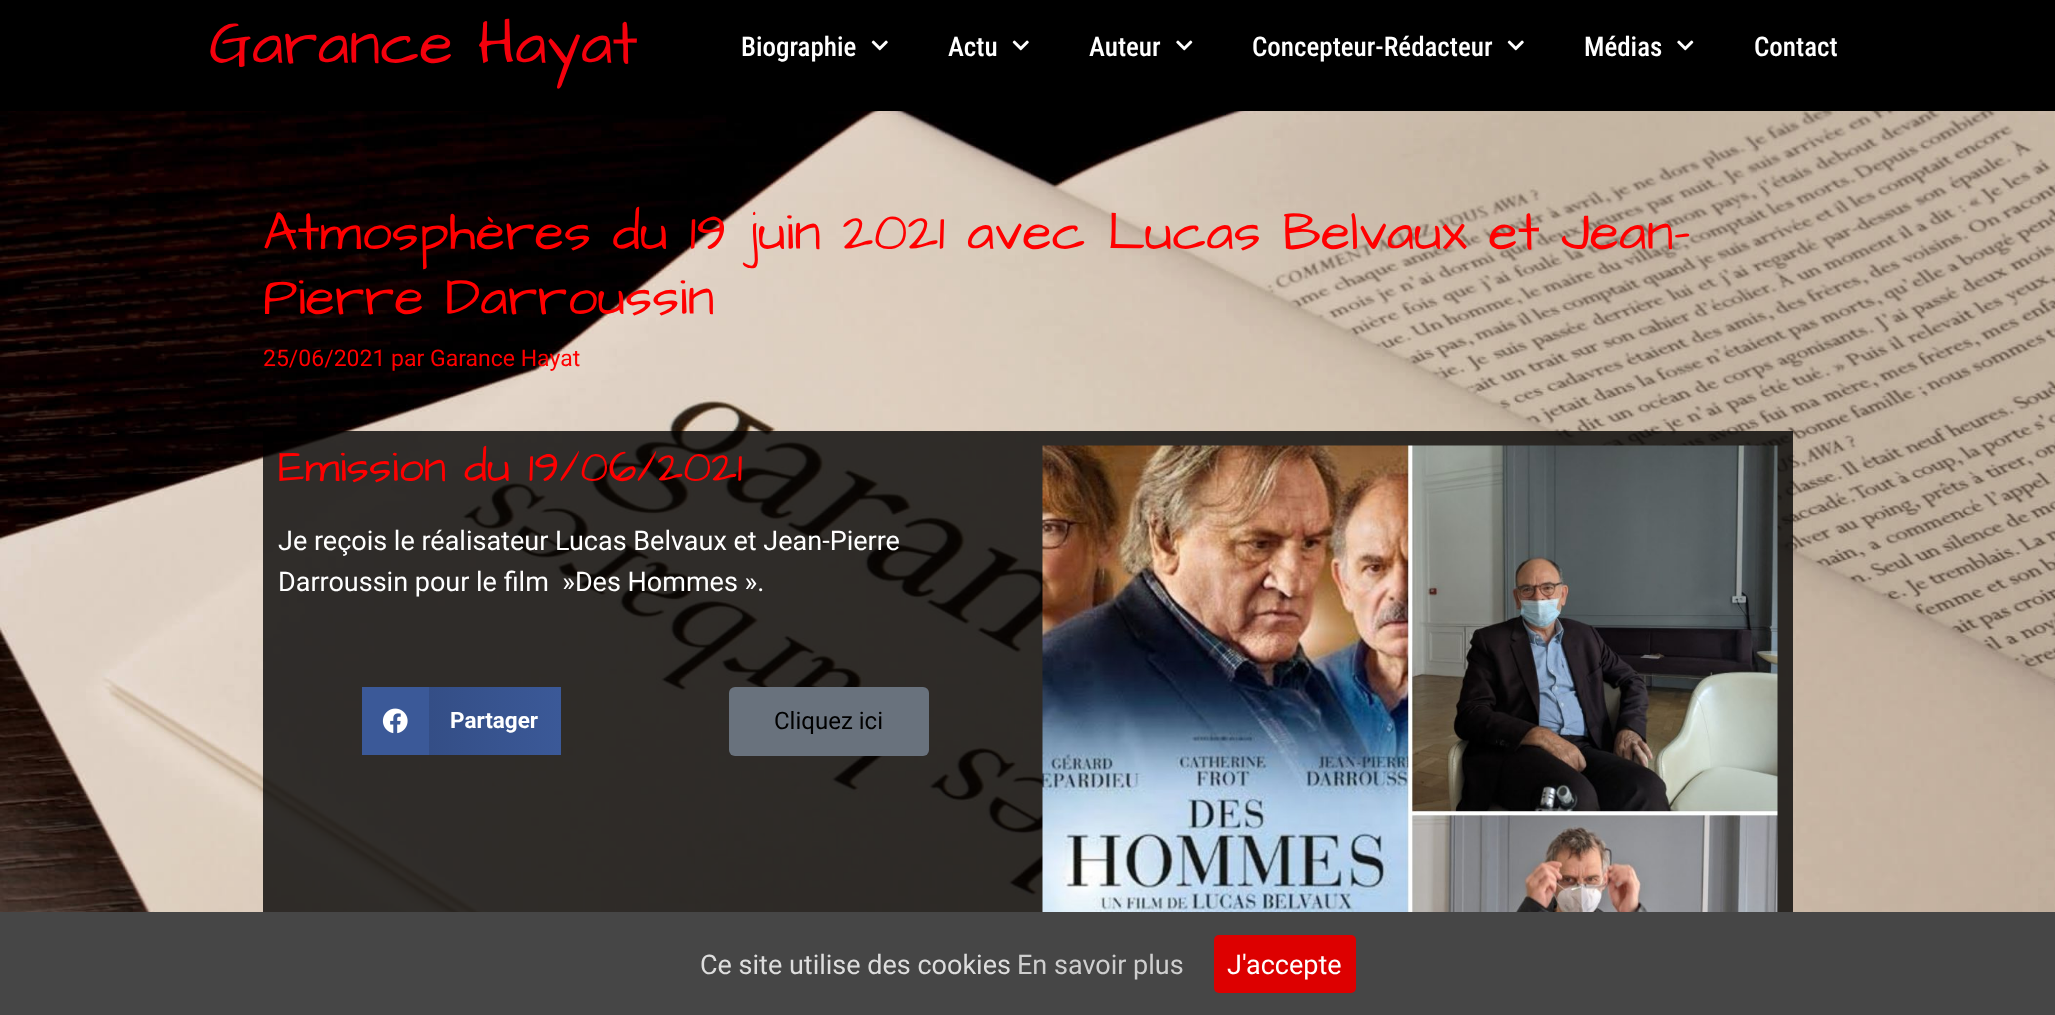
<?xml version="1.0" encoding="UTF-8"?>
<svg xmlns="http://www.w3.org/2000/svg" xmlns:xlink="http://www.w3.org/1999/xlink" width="2055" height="1015">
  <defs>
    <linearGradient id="g1" gradientUnits="userSpaceOnUse" x1="429" y1="721" x2="561" y2="721"><stop offset="0" stop-color="#344e86" /><stop offset="1" stop-color="#3b5998" /></linearGradient>
  </defs>
  <rect width="100%" height="100%" fill="#ffffff" />
  <image x="0" y="111" width="2055" height="801" xlink:href="image1.png" />
  <rect width="2055" height="111" fill="#000000" />
  <image x="871" y="40" width="17" height="11" xlink:href="image2.png" />
  <image x="1012" y="40" width="17" height="11" xlink:href="image2.png" />
  <image x="1176" y="40" width="17" height="11" xlink:href="image3.png" />
  <image x="1507" y="40" width="17" height="11" xlink:href="image2.png" />
  <image x="1677" y="40" width="17" height="11" xlink:href="image3.png" />
  <rect x="263" y="431" width="1530" height="481" fill="#000000" fill-opacity="0.79" />
  <rect x="362" y="687" width="67" height="68" fill="#3b5998" />
  <image x="382" y="708" width="26" height="26" xlink:href="image4.png" />
  <rect x="429" y="687" width="132" height="68" fill="url(#g1)" />
  <rect x="729" y="687" width="200" height="69" rx="6" fill="#69727d" />
  <image x="1042" y="445" width="736" height="467" xlink:href="image5.png" />
  <rect y="912" width="2055" height="103" fill="#464646" />
  <rect x="1214" y="935" width="142" height="58" rx="5" fill="#dd0000" />
  <text x="209" y="63" style="font-family: Architects Daughter; font-size: 62px; fill: #f4000c">Garance Hayat</text>
  <text x="741" y="56" style="font-family: Roboto Condensed; font-size: 27px; font-weight: 500; fill: #ffffff">Biographie</text>
  <text x="948" y="56" style="font-family: Roboto Condensed; font-size: 27px; font-weight: 500; fill: #ffffff">Actu</text>
  <text x="1089" y="56" style="font-family: Roboto Condensed; font-size: 27px; font-weight: 500; fill: #ffffff">Auteur</text>
  <text x="1252" y="56" style="font-family: Roboto Condensed; font-size: 27px; font-weight: 500; fill: #ffffff">Concepteur-Rédacteur</text>
  <text x="1584" y="56" style="font-family: Roboto Condensed; font-size: 27px; font-weight: 500; fill: #ffffff">Médias</text>
  <text x="1754" y="56" style="font-family: Roboto Condensed; font-size: 27px; font-weight: 500; fill: #ffffff">Contact</text>
  <text x="263" y="249" style="font-family: Architects Daughter; font-size: 54px; fill: #ff0000">Atmosphères du 19 juin 2021 avec Lucas Belvaux et Jean-</text>
  <text x="263" y="314" style="font-family: Architects Daughter; font-size: 54px; fill: #ff0000">Pierre Darroussin</text>
  <text x="263" y="366" style="font-family: Roboto; font-size: 23px; fill: #ff0000">25/06/2021 par Garance Hayat</text>
  <text x="278" y="481" style="font-family: Architects Daughter; font-size: 45px; fill: #ff0000">Emission du 19/06/2021</text>
  <text x="278" y="550" style="font-family: Roboto; font-size: 27px; fill: #ffffff">Je reçois le réalisateur Lucas Belvaux et Jean-Pierre</text>
  <text x="278" y="591" style="font-family: Roboto; font-size: 27px; fill: #ffffff" xml:space="preserve">Darroussin pour le film  »Des Hommes ».</text>
  <text x="450" y="728" style="font-family: Roboto; font-size: 22.5px; font-weight: bold; fill: #ffffff">Partager</text>
  <text x="774" y="729" style="font-family: Roboto; font-size: 24px; fill: #000000">Cliquez ici</text>
  <text x="700" y="974" style="font-family: Roboto; font-size: 27px; fill: #dddddd">Ce site utilise des cookies</text>
  <text x="1017" y="974" style="font-family: Roboto; font-size: 27px; fill: #cecece">En savoir plus</text>
  <text x="1227" y="974" style="font-family: Roboto; font-size: 27px; fill: #ffffff">J'accepte</text>
</svg>
